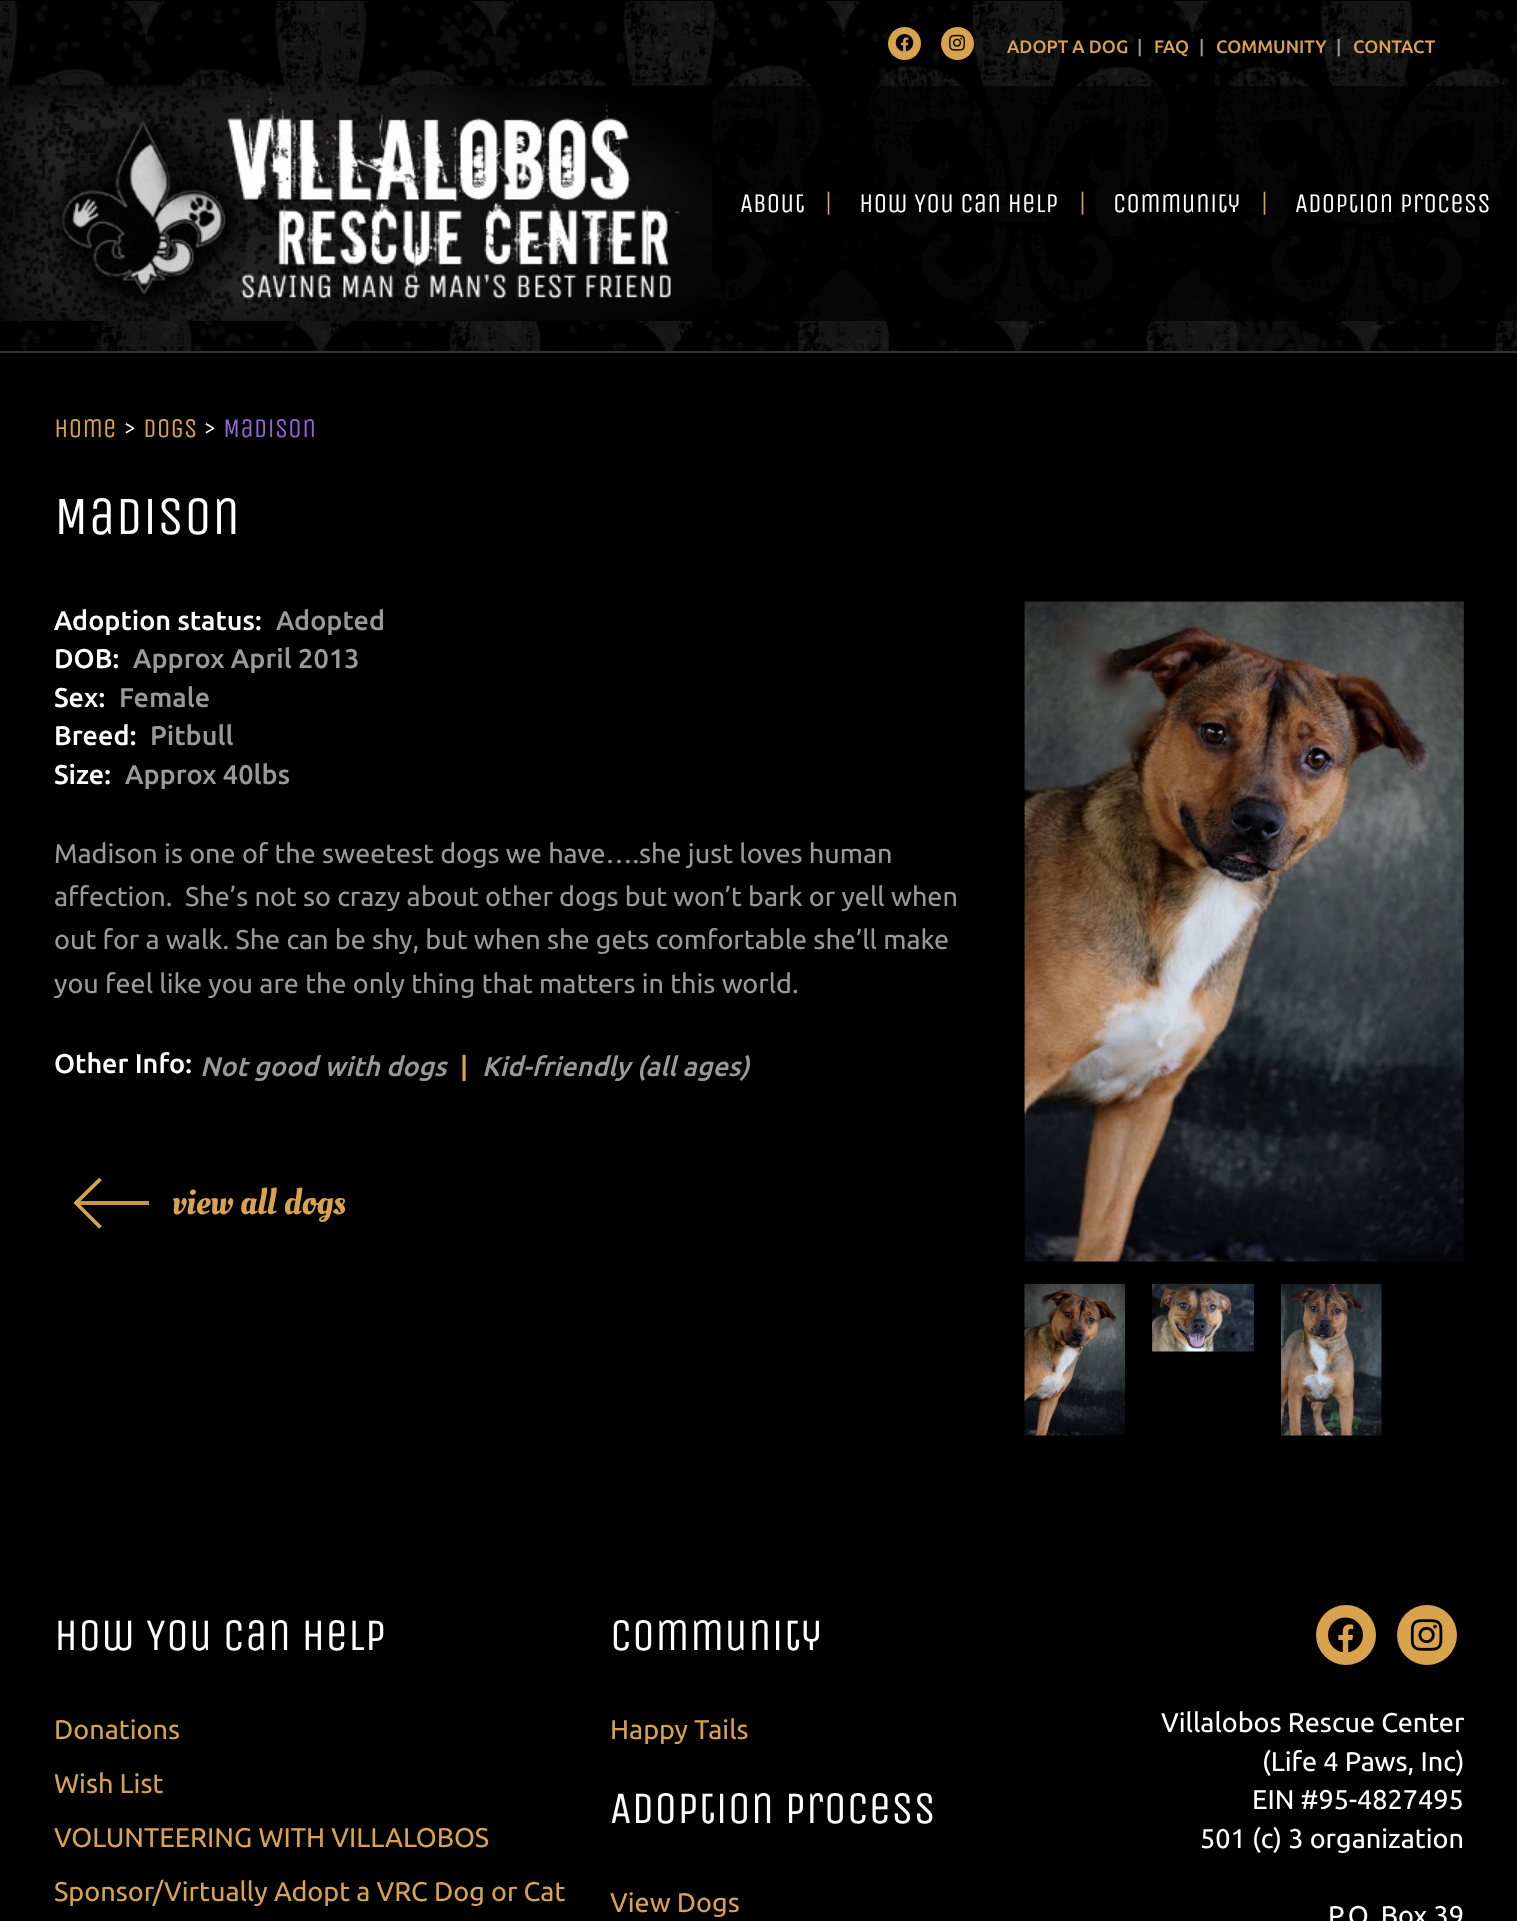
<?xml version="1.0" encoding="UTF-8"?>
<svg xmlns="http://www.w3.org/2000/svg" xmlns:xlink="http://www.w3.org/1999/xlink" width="1517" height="1921">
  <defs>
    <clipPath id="clip1"><rect x="74" y="1178" width="75" height="51" /></clipPath>
  </defs>
  <rect width="100%" height="100%" fill="#000000" />
  <image x="0" y="0" width="1517" height="351" xlink:href="image1.png" />
  <rect y="351" width="1517" height="2" fill="#333333" />
  <circle cx="904.5" cy="43.5" r="16.5" fill="#d8a34c" />
  <image x="895" y="34" width="19" height="18" xlink:href="image2.png" />
  <circle cx="957.5" cy="43.5" r="16.5" fill="#d8a34c" />
  <image x="949" y="34" width="16" height="17" xlink:href="image3.png" />
  <rect x="712" y="86" width="805" height="235" fill="#000000" fill-opacity="0.7" />
  <image x="0" y="85" width="713" height="236" xlink:href="image4.png" />
  <rect x="76" y="1201" width="73" height="4" fill="#c89746" />
  <g clip-path="url(#clip1)">
    <path d="M 100.5 1179 l -24.5 24 l 24.5 24.5" fill="none" stroke="#d8a34c" stroke-width="3.7" />
  </g>
  <image x="1024" y="601" width="440" height="661" xlink:href="image5.png" />
  <image x="1024" y="1284" width="101" height="152" xlink:href="image6.png" />
  <image x="1152" y="1284" width="102" height="68" xlink:href="image7.png" />
  <image x="1281" y="1284" width="101" height="152" xlink:href="image8.png" />
  <circle cx="1346" cy="1635" r="30" fill="#d8a34c" />
  <image x="1328" y="1617" width="35" height="36" xlink:href="image9.png" />
  <circle cx="1427" cy="1635" r="30" fill="#d8a34c" />
  <image x="1410" y="1619" width="33" height="32" xlink:href="image10.png" />
  <text x="1007" y="53" style="font-family: Ubuntu; font-size: 18px; font-weight: 500; fill: #d8a34c">ADOPT A DOG</text>
  <text x="1137" y="53" style="font-family: Ubuntu; font-size: 18px; font-weight: 500; fill: #999999">|</text>
  <text x="1154" y="53" style="font-family: Ubuntu; font-size: 18px; font-weight: 500; fill: #d8a34c">FAQ</text>
  <text x="1199" y="53" style="font-family: Ubuntu; font-size: 18px; font-weight: 500; fill: #999999">|</text>
  <text x="1216" y="53" style="font-family: Ubuntu; font-size: 18px; font-weight: 500; fill: #d8a34c">COMMUNITY</text>
  <text x="1336" y="53" style="font-family: Ubuntu; font-size: 18px; font-weight: 500; fill: #999999">|</text>
  <text x="1353" y="53" style="font-family: Ubuntu; font-size: 18px; font-weight: 500; fill: #d8a34c">CONTACT</text>
  <text x="740" y="212" style="font-family: Unica One; font-size: 27px; fill: #ffffff">About</text>
  <text x="825" y="212" style="font-family: Unica One; font-size: 27px; fill: #d8a34c">|</text>
  <text x="859" y="212" style="font-family: Unica One; font-size: 27px; fill: #ffffff">How You Can Help</text>
  <text x="1079" y="212" style="font-family: Unica One; font-size: 27px; fill: #d8a34c">|</text>
  <text x="1113" y="212" style="font-family: Unica One; font-size: 27px; fill: #ffffff">Community</text>
  <text x="1261" y="212" style="font-family: Unica One; font-size: 27px; fill: #d8a34c">|</text>
  <text x="1295" y="212" style="font-family: Unica One; font-size: 27px; fill: #ffffff">Adoption Process</text>
  <text x="54" y="437" style="font-family: Unica One; font-size: 27px; fill: #d8a34c">Home</text>
  <text x="123" y="437" style="font-family: Unica One; font-size: 27px; fill: #ffffff">&gt;</text>
  <text x="143" y="437" style="font-family: Unica One; font-size: 27px; fill: #d8a34c">Dogs</text>
  <text x="203" y="437" style="font-family: Unica One; font-size: 27px; fill: #ffffff">&gt;</text>
  <text x="223" y="437" style="font-family: Unica One; font-size: 27px; fill: #9663d8">Madison</text>
  <text x="54" y="534" style="font-family: Unica One; font-size: 54px; fill: #ffffff">Madison</text>
  <text x="54" y="630" style="font-family: Ubuntu; font-size: 27px; font-weight: 500; fill: #ffffff">Adoption status:</text>
  <text x="276" y="630" style="font-family: Ubuntu; font-size: 27px; font-weight: 500; fill: #999999">Adopted</text>
  <text x="54" y="668" style="font-family: Ubuntu; font-size: 27px; font-weight: 500; fill: #ffffff">DOB:</text>
  <text x="133" y="668" style="font-family: Ubuntu; font-size: 27px; font-weight: 500; fill: #999999">Approx April 2013</text>
  <text x="54" y="707" style="font-family: Ubuntu; font-size: 27px; font-weight: 500; fill: #ffffff">Sex:</text>
  <text x="119" y="707" style="font-family: Ubuntu; font-size: 27px; font-weight: 500; fill: #999999">Female</text>
  <text x="54" y="745" style="font-family: Ubuntu; font-size: 27px; font-weight: 500; fill: #ffffff">Breed:</text>
  <text x="150" y="745" style="font-family: Ubuntu; font-size: 27px; font-weight: 500; fill: #999999">Pitbull</text>
  <text x="54" y="784" style="font-family: Ubuntu; font-size: 27px; font-weight: 500; fill: #ffffff">Size:</text>
  <text x="125" y="784" style="font-family: Ubuntu; font-size: 27px; font-weight: 500; fill: #999999">Approx 40lbs</text>
  <text x="54" y="863" style="font-family: Ubuntu; font-size: 27px; fill: #999999">Madison is one of the sweetest dogs we have….she just loves human</text>
  <text x="54" y="906" style="font-family: Ubuntu; font-size: 27px; fill: #999999" xml:space="preserve">affection.  She’s not so crazy about other dogs but won’t bark or yell when</text>
  <text x="54" y="949" style="font-family: Ubuntu; font-size: 27px; fill: #999999">out for a walk. She can be shy, but when she gets comfortable she’ll make</text>
  <text x="54" y="993" style="font-family: Ubuntu; font-size: 27px; fill: #999999">you feel like you are the only thing that matters in this world.</text>
  <text x="54" y="1073" style="font-family: Ubuntu; font-size: 27px; font-weight: 500; fill: #ffffff">Other Info:</text>
  <text x="200" y="1076" style="font-family: Ubuntu; font-size: 27px; font-weight: 500; font-style: italic; fill: #999999">Not good with dogs</text>
  <text x="460" y="1076" style="font-family: Ubuntu; font-size: 27px; font-weight: 500; fill: #d8a34c">|</text>
  <text x="482" y="1076" style="font-family: Ubuntu; font-size: 27px; font-weight: 500; font-style: italic; fill: #999999">Kid-friendly (all ages)</text>
  <text x="172" y="1214" style="font-family: Oleo Script; font-size: 36px; fill: #d8a34c">view all dogs</text>
  <text x="54" y="1650" style="font-family: Unica One; font-size: 45px; fill: #ffffff">How You Can Help</text>
  <text x="54" y="1739" style="font-family: Ubuntu; font-size: 27px; fill: #d8a34c">Donations</text>
  <text x="54" y="1793" style="font-family: Ubuntu; font-size: 27px; fill: #d8a34c">Wish List</text>
  <text x="54" y="1847" style="font-family: Ubuntu; font-size: 27px; fill: #d8a34c">VOLUNTEERING WITH VILLALOBOS</text>
  <text x="54" y="1901" style="font-family: Ubuntu; font-size: 27px; fill: #d8a34c">Sponsor/Virtually Adopt a VRC Dog or Cat</text>
  <text x="610" y="1650" style="font-family: Unica One; font-size: 45px; fill: #ffffff">Community</text>
  <text x="610" y="1739" style="font-family: Ubuntu; font-size: 27px; fill: #d8a34c">Happy Tails</text>
  <text x="610" y="1823" style="font-family: Unica One; font-size: 45px; fill: #ffffff">Adoption Process</text>
  <text x="610" y="1912" style="font-family: Ubuntu; font-size: 27px; fill: #d8a34c">View Dogs</text>
  <text x="1161" y="1732" style="font-family: Ubuntu; font-size: 27px; fill: #ffffff">Villalobos Rescue Center</text>
  <text x="1262" y="1771" style="font-family: Ubuntu; font-size: 27px; fill: #ffffff">(Life 4 Paws, Inc)</text>
  <text x="1252" y="1809" style="font-family: Ubuntu; font-size: 27px; fill: #ffffff">EIN #95-4827495</text>
  <text x="1200" y="1848" style="font-family: Ubuntu; font-size: 27px; fill: #ffffff">501 (c) 3 organization</text>
  <text x="1328" y="1925" style="font-family: Ubuntu; font-size: 27px; fill: #ffffff">P.O. Box 39</text>
</svg>
